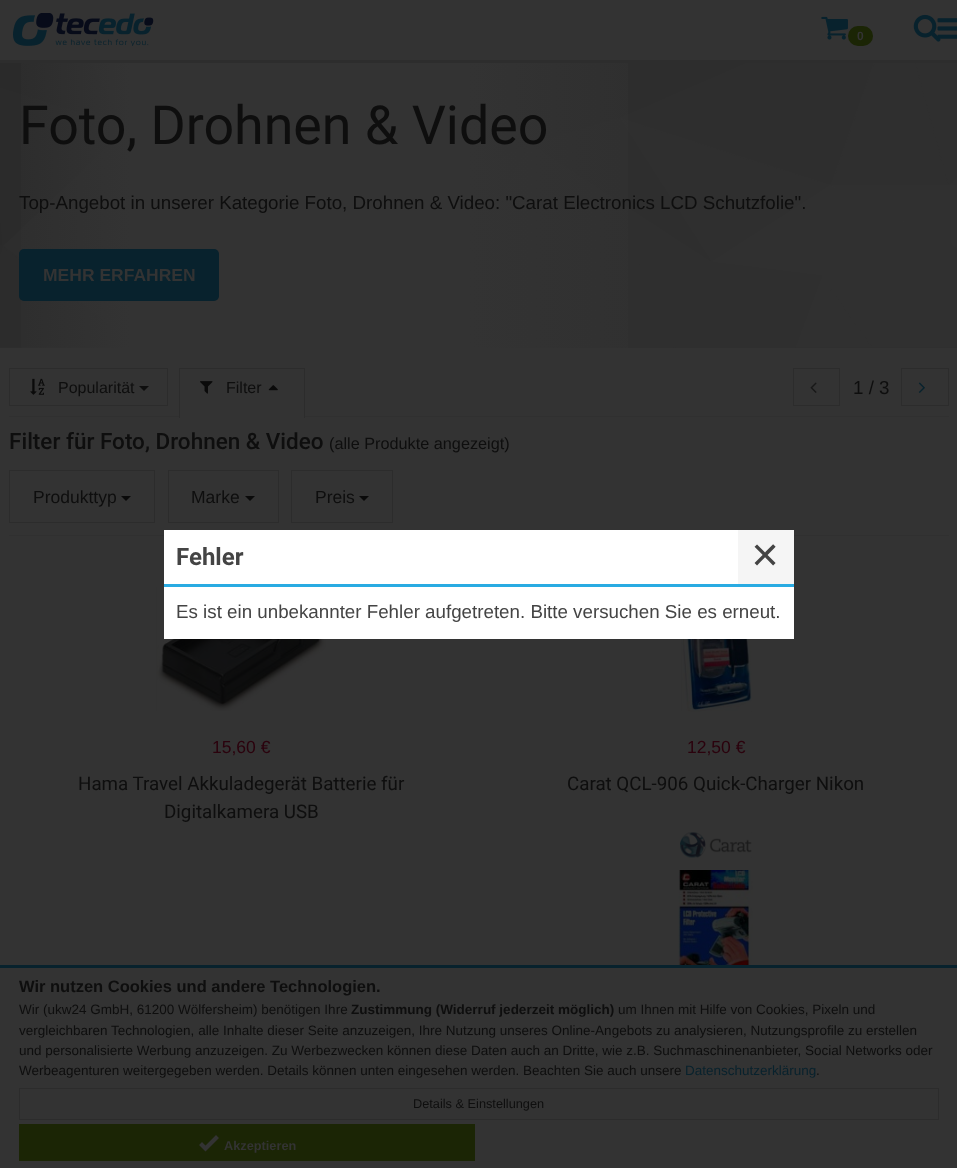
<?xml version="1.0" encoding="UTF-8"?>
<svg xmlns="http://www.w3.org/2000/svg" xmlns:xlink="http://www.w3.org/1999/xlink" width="957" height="1168">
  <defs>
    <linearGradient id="g1" gradientUnits="userSpaceOnUse" x1="-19" y1="205" x2="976" y2="205"><stop offset="0" stop-color="#333333" stop-opacity="0" /><stop offset="0.15" stop-color="#333333" /><stop offset="0.49" stop-color="#333333" /><stop offset="0.75" stop-color="#333333" stop-opacity="0" /><stop offset="1" stop-color="#333333" stop-opacity="0" /></linearGradient>
  </defs>
  <rect width="100%" height="100%" fill="#333333" />
  <rect y="60" width="957" height="3" fill="#2d2d2d" />
  <image x="13" y="13" width="141" height="33" xlink:href="image1.png" />
  <image x="821" y="16" width="27" height="24" xlink:href="image2.png" />
  <rect x="848" y="26" width="25" height="20" rx="10" fill="#1b2505" />
  <image x="913" y="14" width="28" height="28" xlink:href="image3.png" />
  <image x="937" y="18" width="20" height="21" xlink:href="image4.png" />
  <rect y="113" width="957" height="235" fill="#2f2f2f" />
  <image x="0" y="63" width="957" height="285" xlink:href="image5.png" />
  <rect x="21" y="63" width="607" height="285" fill="url(#g1)" />
  <rect x="19" y="249" width="200" height="52" rx="5" fill="#08222d" />
  <rect x="9" y="416" width="940" height="1" fill="#303030" />
  <rect x="9.5" y="368.5" width="158" height="37" fill="none" stroke="#2c2c2c" />
  <image x="30" y="378" width="15" height="17" xlink:href="image6.png" />
  <path d="M 139 386 h 10 l -5 5 z" fill="#0e0e0e" />
  <rect x="180" y="416" width="124" height="1" fill="#333333" />
  <rect x="179" y="368" width="126" height="1" fill="#2c2c2c" />
  <rect x="304" y="368" width="1" height="50" fill="#2c2c2c" />
  <rect x="179" y="368" width="1" height="50" fill="#2c2c2c" />
  <image x="200" y="381" width="13" height="13" xlink:href="image7.png" />
  <image x="268" y="385" width="10" height="6" xlink:href="image8.png" />
  <rect x="793.5" y="368.5" width="46" height="37" fill="none" stroke="#2c2c2c" />
  <image x="810" y="382" width="7" height="11" xlink:href="image9.png" />
  <rect x="901.5" y="368.5" width="47" height="37" fill="none" stroke="#2c2c2c" />
  <image x="918" y="382" width="7" height="11" xlink:href="image10.png" />
  <rect x="9" y="535" width="940" height="1" fill="#303030" />
  <rect x="9.5" y="470.5" width="145" height="52" fill="none" stroke="#2c2c2c" />
  <path d="M 121 496 h 10 l -5 5 z" fill="#0a0a0a" />
  <rect x="168.5" y="470.5" width="110" height="52" fill="none" stroke="#2c2c2c" />
  <path d="M 245 496 h 10 l -5 5 z" fill="#0a0a0a" />
  <rect x="291.5" y="470.5" width="101" height="52" fill="none" stroke="#2c2c2c" />
  <path d="M 359 496 h 10 l -5 5 z" fill="#0a0a0a" />
  <image x="156" y="587" width="170" height="124" xlink:href="image11.png" />
  <image x="681" y="639" width="71" height="73" xlink:href="image12.png" />
  <image x="680" y="832" width="72" height="26" xlink:href="image13.png" />
  <image x="678" y="870" width="75" height="95" xlink:href="image14.png" />
  <rect x="164" y="530" width="630" height="109" fill="#ffffff" />
  <rect x="738" y="530" width="56" height="54" fill="#f5f5f5" />
  <rect x="164" y="584" width="630" height="3" fill="#29abe2" />
  <rect y="965" width="957" height="3" fill="#08222d" />
  <rect x="19.5" y="1088.5" width="919" height="31" fill="none" stroke="#2c2c2c" />
  <rect x="19" y="1124" width="456" height="37" fill="#1b2505" />
  <path d="M 205.5 1151.5 l -6.5 -6.5 l 3 -3 l 3.5 3.5 l 10.5 -10.5 l 3 3 z" fill="#333333" />
  <text x="857" y="40" style="font-family: Liberation Sans; font-size: 12px; font-weight: bold; fill: #333333">0</text>
  <text x="19" y="144" style="font-family: Roboto; font-size: 53.75px; fill: #0e0e0e">Foto, Drohnen &amp; Video</text>
  <text x="19" y="209" style="font-family: Liberation Sans; font-size: 18.75px; fill: #0e0e0e">Top-Angebot in unserer Kategorie Foto, Drohnen &amp; Video: "Carat Electronics LCD Schutzfolie".</text>
  <text x="43" y="281" style="font-family: Liberation Sans; font-size: 17.5px; font-weight: bold; fill: #333333">MEHR ERFAHREN</text>
  <text x="58" y="393" style="font-family: Liberation Sans; font-size: 16px; fill: #0e0e0e">Popularität</text>
  <text x="226" y="393" style="font-family: Liberation Sans; font-size: 16px; fill: #0e0e0e">Filter</text>
  <text x="853" y="394" style="font-family: Liberation Sans; font-size: 18.75px; fill: #0e0e0e">1 / 3</text>
  <text x="9" y="449" style="font-family: Roboto; font-size: 22.5px; font-weight: 500; fill: #0e0e0e">Filter für Foto, Drohnen &amp; Video</text>
  <text x="329" y="449" style="font-family: Liberation Sans; font-size: 16.25px; fill: #0e0e0e">(alle Produkte angezeigt)</text>
  <text x="33" y="503" style="font-family: Liberation Sans; font-size: 17.5px; fill: #0e0e0e">Produkttyp</text>
  <text x="191" y="503" style="font-family: Liberation Sans; font-size: 17.5px; fill: #0e0e0e">Marke</text>
  <text x="315" y="503" style="font-family: Liberation Sans; font-size: 17.5px; fill: #0e0e0e">Preis</text>
  <text x="212" y="753" style="font-family: Liberation Sans; font-size: 17.5px; fill: #2b020d">15,60 €</text>
  <text x="78" y="790" style="font-family: Roboto; font-size: 18.75px; fill: #0e0e0e">Hama Travel Akkuladegerät Batterie für</text>
  <text x="164" y="818" style="font-family: Roboto; font-size: 18.75px; fill: #0e0e0e">Digitalkamera USB</text>
  <text x="687" y="753" style="font-family: Liberation Sans; font-size: 17.5px; fill: #2b020d">12,50 €</text>
  <text x="567" y="790" style="font-family: Roboto; font-size: 18.75px; fill: #0e0e0e">Carat QCL-906 Quick-Charger Nikon</text>
  <text x="750" y="568" style="font-family: DejaVu Sans; font-size: 36px; fill: #444444">✕</text>
  <text x="176" y="565" style="font-family: Roboto; font-size: 24px; font-weight: bold; fill: #444444">Fehler</text>
  <text x="176" y="618" style="font-family: Liberation Sans; font-size: 18.75px; fill: #444444">Es ist ein unbekannter Fehler aufgetreten. Bitte versuchen Sie es erneut.</text>
  <text x="19" y="992" style="font-family: Liberation Sans; font-size: 16.5px; font-weight: bold; fill: #0e0e0e">Wir nutzen Cookies und andere Technologien.</text>
  <text x="19" y="1014" style="font-family: Liberation Sans; font-size: 13.5px; fill: #0e0e0e">Wir (ukw24 GmbH, 61200 Wölfersheim) benötigen Ihre</text>
  <text x="351" y="1014" style="font-family: Liberation Sans; font-size: 13.5px; font-weight: bold; fill: #0e0e0e">Zustimmung (Widerruf jederzeit möglich)</text>
  <text x="618" y="1014" style="font-family: Liberation Sans; font-size: 13.5px; fill: #0e0e0e">um Ihnen mit Hilfe von Cookies, Pixeln und</text>
  <text x="19" y="1035" style="font-family: Liberation Sans; font-size: 13.5px; fill: #0e0e0e">vergleichbaren Technologien, alle Inhalte dieser Seite anzuzeigen, Ihre Nutzung unseres Online-Angebots zu analysieren, Nutzungsprofile zu erstellen</text>
  <text x="19" y="1055" style="font-family: Liberation Sans; font-size: 13.5px; fill: #0e0e0e">und personalisierte Werbung anzuzeigen. Zu Werbezwecken können diese Daten auch an Dritte, wie z.B. Suchmaschinenanbieter, Social Networks oder</text>
  <text x="19" y="1075" style="font-family: Liberation Sans; font-size: 13.5px; fill: #0e0e0e">Werbeagenturen weitergegeben werden. Details können unten eingesehen werden. Beachten Sie auch unsere</text>
  <text x="685" y="1075" style="font-family: Liberation Sans; font-size: 13.5px; fill: #08222d">Datenschutzerklärung</text>
  <text x="816" y="1075" style="font-family: Liberation Sans; font-size: 13.5px; fill: #0e0e0e">.</text>
  <text x="413" y="1108" style="font-family: Liberation Sans; font-size: 12.75px; fill: #0e0e0e">Details &amp; Einstellungen</text>
  <text x="224" y="1150" style="font-family: Liberation Sans; font-size: 12.75px; font-weight: bold; fill: #333333">Akzeptieren</text>
</svg>
